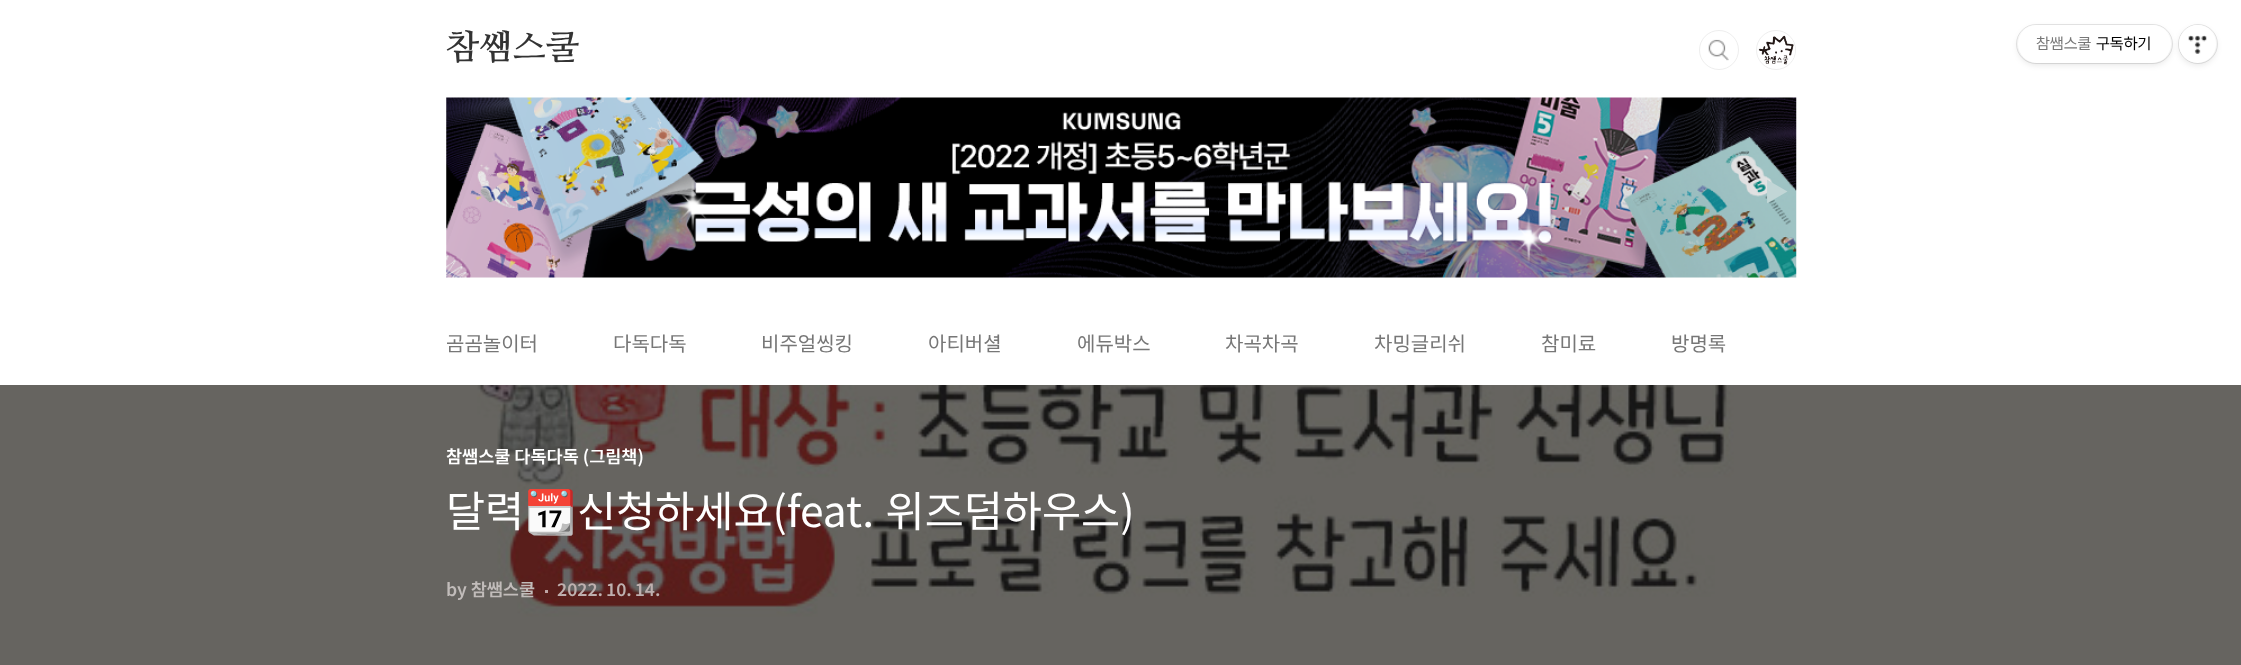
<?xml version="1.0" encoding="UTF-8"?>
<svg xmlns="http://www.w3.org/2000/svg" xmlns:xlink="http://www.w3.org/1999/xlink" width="2241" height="665">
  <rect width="100%" height="100%" fill="#ffffff" />
  <circle cx="1719" cy="50" r="18.5" fill="none" stroke="#eeeeee" />
  <circle cx="1719" cy="50" r="20" fill="#ffffff" />
  <image x="1708" y="39" width="21" height="22" xlink:href="image1.png" />
  <circle cx="1719" cy="50" r="19.5" fill="none" stroke="#eeeeee" />
  <circle cx="1776" cy="50" r="19.5" fill="none" stroke="#eeeeee" />
  <image x="1758" y="35" width="37" height="30" xlink:href="image2.png" />
  <image x="446" y="97" width="1351" height="181" xlink:href="image3.png" />
  <image x="0" y="385" width="2241" height="280" xlink:href="image4.png" />
  <rect x="545" y="590" width="3" height="3" fill="#bda5a4" />
  <rect x="2179" y="28" width="37" height="37" rx="18.5" fill="#000000" fill-opacity="0.1" filter="blur(3px)" />
  <circle cx="2198" cy="44" r="19.5" fill="none" stroke="#000000" stroke-opacity="0.1" />
  <rect x="2179" y="25" width="37" height="38" rx="18.5" fill="#ffffff" />
  <rect x="2018" y="28" width="153" height="37" rx="18.5" fill="#000000" fill-opacity="0.1" filter="blur(3px)" />
  <rect x="2016.5" y="24.5" width="156" height="39" rx="19.5" fill="none" stroke="#000000" stroke-opacity="0.1" />
  <rect x="2018" y="25" width="153" height="38" rx="19" fill="#ffffff" />
  <image x="2188" y="35" width="19" height="19" xlink:href="image5.png" />
  <text x="446" y="59" style="font-family: NanumMyeongjo; font-size: 35px; font-weight: bold; fill: #333333">참쌤스쿨</text>
  <text x="1764" y="201" style="font-family: Noto Sans KR; font-size: 25px; font-weight: bold; fill: #c1d6d6">▶</text>
  <text x="446" y="351" style="font-family: Noto Sans KR; font-size: 20px; fill: #777777">곰곰놀이터</text>
  <text x="613" y="351" style="font-family: Noto Sans KR; font-size: 20px; fill: #777777">다독다독</text>
  <text x="761" y="351" style="font-family: Noto Sans KR; font-size: 20px; fill: #777777">비주얼씽킹</text>
  <text x="928" y="351" style="font-family: Noto Sans KR; font-size: 20px; fill: #777777">아티버셜</text>
  <text x="1077" y="351" style="font-family: Noto Sans KR; font-size: 20px; fill: #777777">에듀박스</text>
  <text x="1225" y="351" style="font-family: Noto Sans KR; font-size: 20px; fill: #777777">차곡차곡</text>
  <text x="1374" y="351" style="font-family: Noto Sans KR; font-size: 20px; fill: #777777">차밍글리쉬</text>
  <text x="1541" y="351" style="font-family: Noto Sans KR; font-size: 20px; fill: #777777">참미료</text>
  <text x="1671" y="351" style="font-family: Noto Sans KR; font-size: 20px; fill: #777777">방명록</text>
  <text x="446" y="463" style="font-family: Noto Sans KR; font-size: 17.5px; font-weight: 600; fill: #ffffff">참쌤스쿨 다독다독 (그림책)</text>
  <text x="446" y="527" style="font-family: Noto Sans KR; font-size: 42.5px; fill: #ffffff">달력</text>
  <text x="524" y="527" style="font-family: Noto Color Emoji; font-size: 42.5px; fill: #ffffff">📆</text>
  <text x="577" y="527" word-spacing="2" style="font-family: Noto Sans KR; font-size: 42.5px; fill: #ffffff">신청하세요(feat. 위즈덤하우스)</text>
  <text x="446" y="596" style="font-family: Noto Sans KR; font-size: 17.5px; font-weight: 600; fill: #c1bcba">by 참쌤스쿨</text>
  <text x="557" y="596" word-spacing="-1" style="font-family: Noto Sans KR; font-size: 17.5px; font-weight: 600; fill: #beb0af">2022. 10. 14.</text>
  <text x="2036" y="49" style="font-family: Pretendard; font-size: 16px; fill: #777777">참쌤스쿨</text>
  <text x="2096" y="49" style="font-family: Pretendard; font-size: 16px; fill: #000000">구독하기</text>
</svg>
